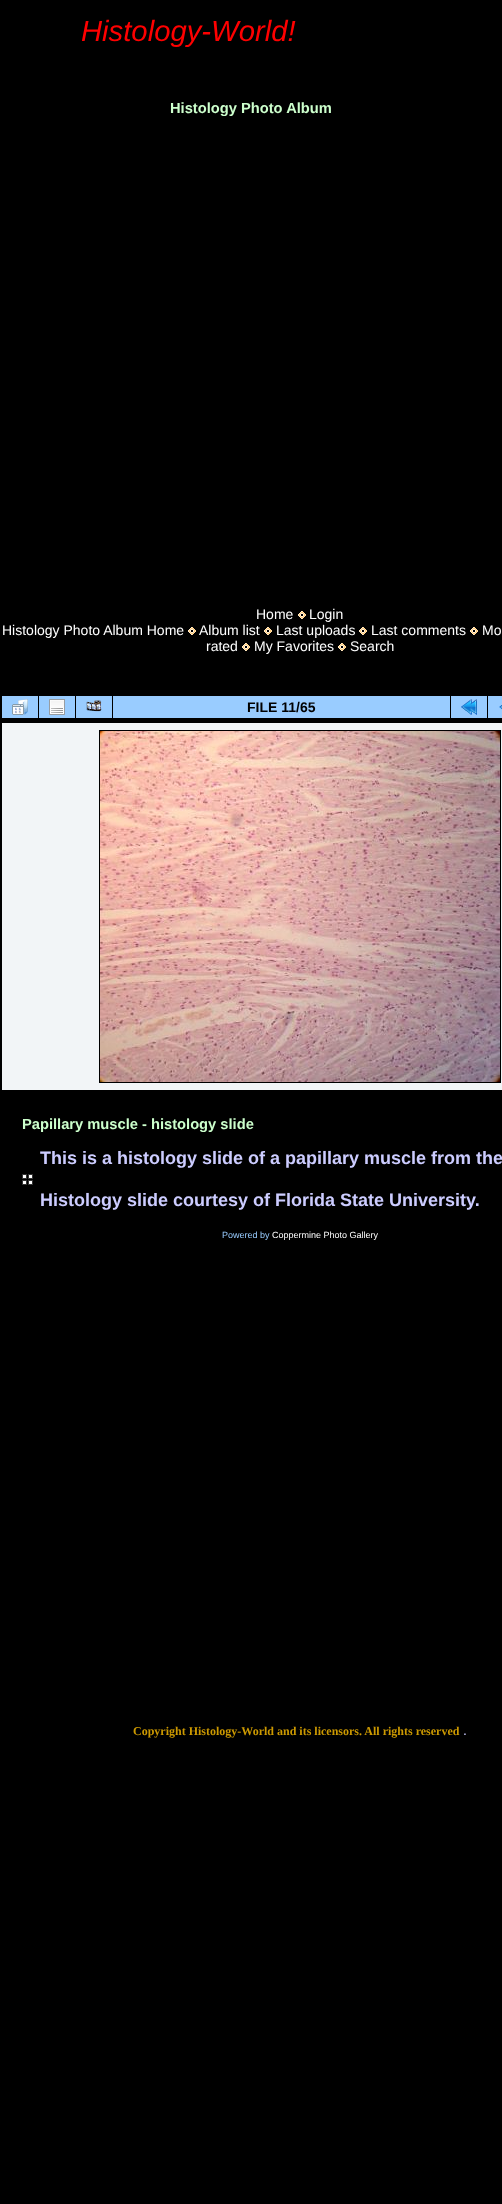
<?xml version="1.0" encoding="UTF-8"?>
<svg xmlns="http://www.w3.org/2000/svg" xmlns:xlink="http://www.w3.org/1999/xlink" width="502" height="2204">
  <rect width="100%" height="100%" fill="#000000" />
  <image x="298" y="611" width="8" height="8" xlink:href="image1.png" />
  <image x="188" y="627" width="8" height="8" xlink:href="image1.png" />
  <image x="264" y="627" width="8" height="8" xlink:href="image1.png" />
  <image x="359" y="627" width="8" height="8" xlink:href="image1.png" />
  <image x="470" y="627" width="8" height="8" xlink:href="image1.png" />
  <image x="242" y="643" width="8" height="8" xlink:href="image1.png" />
  <image x="338" y="643" width="8" height="8" xlink:href="image1.png" />
  <rect x="2" y="696" width="36" height="22" fill="#99ccff" />
  <image x="12" y="699" width="16" height="16" xlink:href="image2.png" />
  <rect x="39" y="696" width="36" height="22" fill="#99ccff" />
  <image x="49" y="699" width="16" height="16" xlink:href="image3.png" />
  <rect x="76" y="696" width="36" height="22" fill="#99ccff" />
  <image x="86" y="700" width="16" height="12" xlink:href="image4.png" />
  <rect x="113" y="696" width="337" height="22" fill="#99ccff" />
  <rect x="451" y="696" width="36" height="22" fill="#99ccff" />
  <image x="461" y="699" width="16" height="16" xlink:href="image5.png" />
  <rect x="488" y="696" width="14" height="22" fill="#99ccff" />
  <image x="499" y="705" width="3" height="4" xlink:href="image6.png" />
  <rect x="2" y="723" width="500" height="367" fill="#f2f5f7" />
  <rect x="99.5" y="730.5" width="401" height="352" fill="none" stroke="#000000" />
  <image x="100" y="731" width="400" height="351" xlink:href="image7.png" />
  <image x="22" y="1174" width="11" height="11" xlink:href="image8.png" />
  <text x="81" y="41" style="font-family: Liberation Sans; font-size: 29.25px; font-style: italic; fill: #ff0000">Histology-World!</text>
  <text x="170" y="113" style="font-family: Liberation Sans; font-size: 14.7px; font-weight: bold; fill: #ccffcc">Histology Photo Album</text>
  <text x="256" y="619" style="font-family: Liberation Sans; font-size: 14px; fill: #ffffff">Home</text>
  <text x="309" y="619" style="font-family: Liberation Sans; font-size: 14px; fill: #ffffff">Login</text>
  <text x="2" y="635" style="font-family: Liberation Sans; font-size: 14px; fill: #ffffff">Histology Photo Album Home</text>
  <text x="199" y="635" style="font-family: Liberation Sans; font-size: 14px; fill: #ffffff">Album list</text>
  <text x="276" y="635" style="font-family: Liberation Sans; font-size: 14px; fill: #ffffff">Last uploads</text>
  <text x="371" y="635" style="font-family: Liberation Sans; font-size: 14px; fill: #ffffff">Last comments</text>
  <text x="482" y="635" style="font-family: Liberation Sans; font-size: 14px; fill: #ffffff">Mo</text>
  <text x="206" y="651" style="font-family: Liberation Sans; font-size: 14px; fill: #ffffff">rated</text>
  <text x="254" y="651" style="font-family: Liberation Sans; font-size: 14px; fill: #ffffff">My Favorites</text>
  <text x="350" y="651" style="font-family: Liberation Sans; font-size: 14px; fill: #ffffff">Search</text>
  <text x="247" y="712" style="font-family: Liberation Sans; font-size: 14px; font-weight: bold; fill: #000000">FILE 11/65</text>
  <text x="22" y="1129" style="font-family: Liberation Sans; font-size: 14.7px; font-weight: bold; fill: #ccffcc">Papillary muscle - histology slide</text>
  <text x="40" y="1164" style="font-family: Liberation Sans; font-size: 18px; font-weight: bold; fill: #ccccff">This is a histology slide of a papillary muscle from the</text>
  <text x="40" y="1206" style="font-family: Liberation Sans; font-size: 18px; font-weight: bold; fill: #ccccff">Histology slide courtesy of Florida State University.</text>
  <text x="222" y="1238" style="font-family: Liberation Sans; font-size: 9px; fill: #99ccff">Powered by</text>
  <text x="272" y="1238" style="font-family: Liberation Sans; font-size: 9px; fill: #ffffff">Coppermine Photo Gallery</text>
  <text x="133" y="1735" style="font-family: Liberation Serif; font-size: 12px; font-weight: bold; fill: #cc9900">Copyright Histology-World and its licensors. All rights reserved</text>
  <text x="463" y="1735" style="font-family: Liberation Sans; font-size: 14px; fill: #ccccff">.</text>
</svg>
